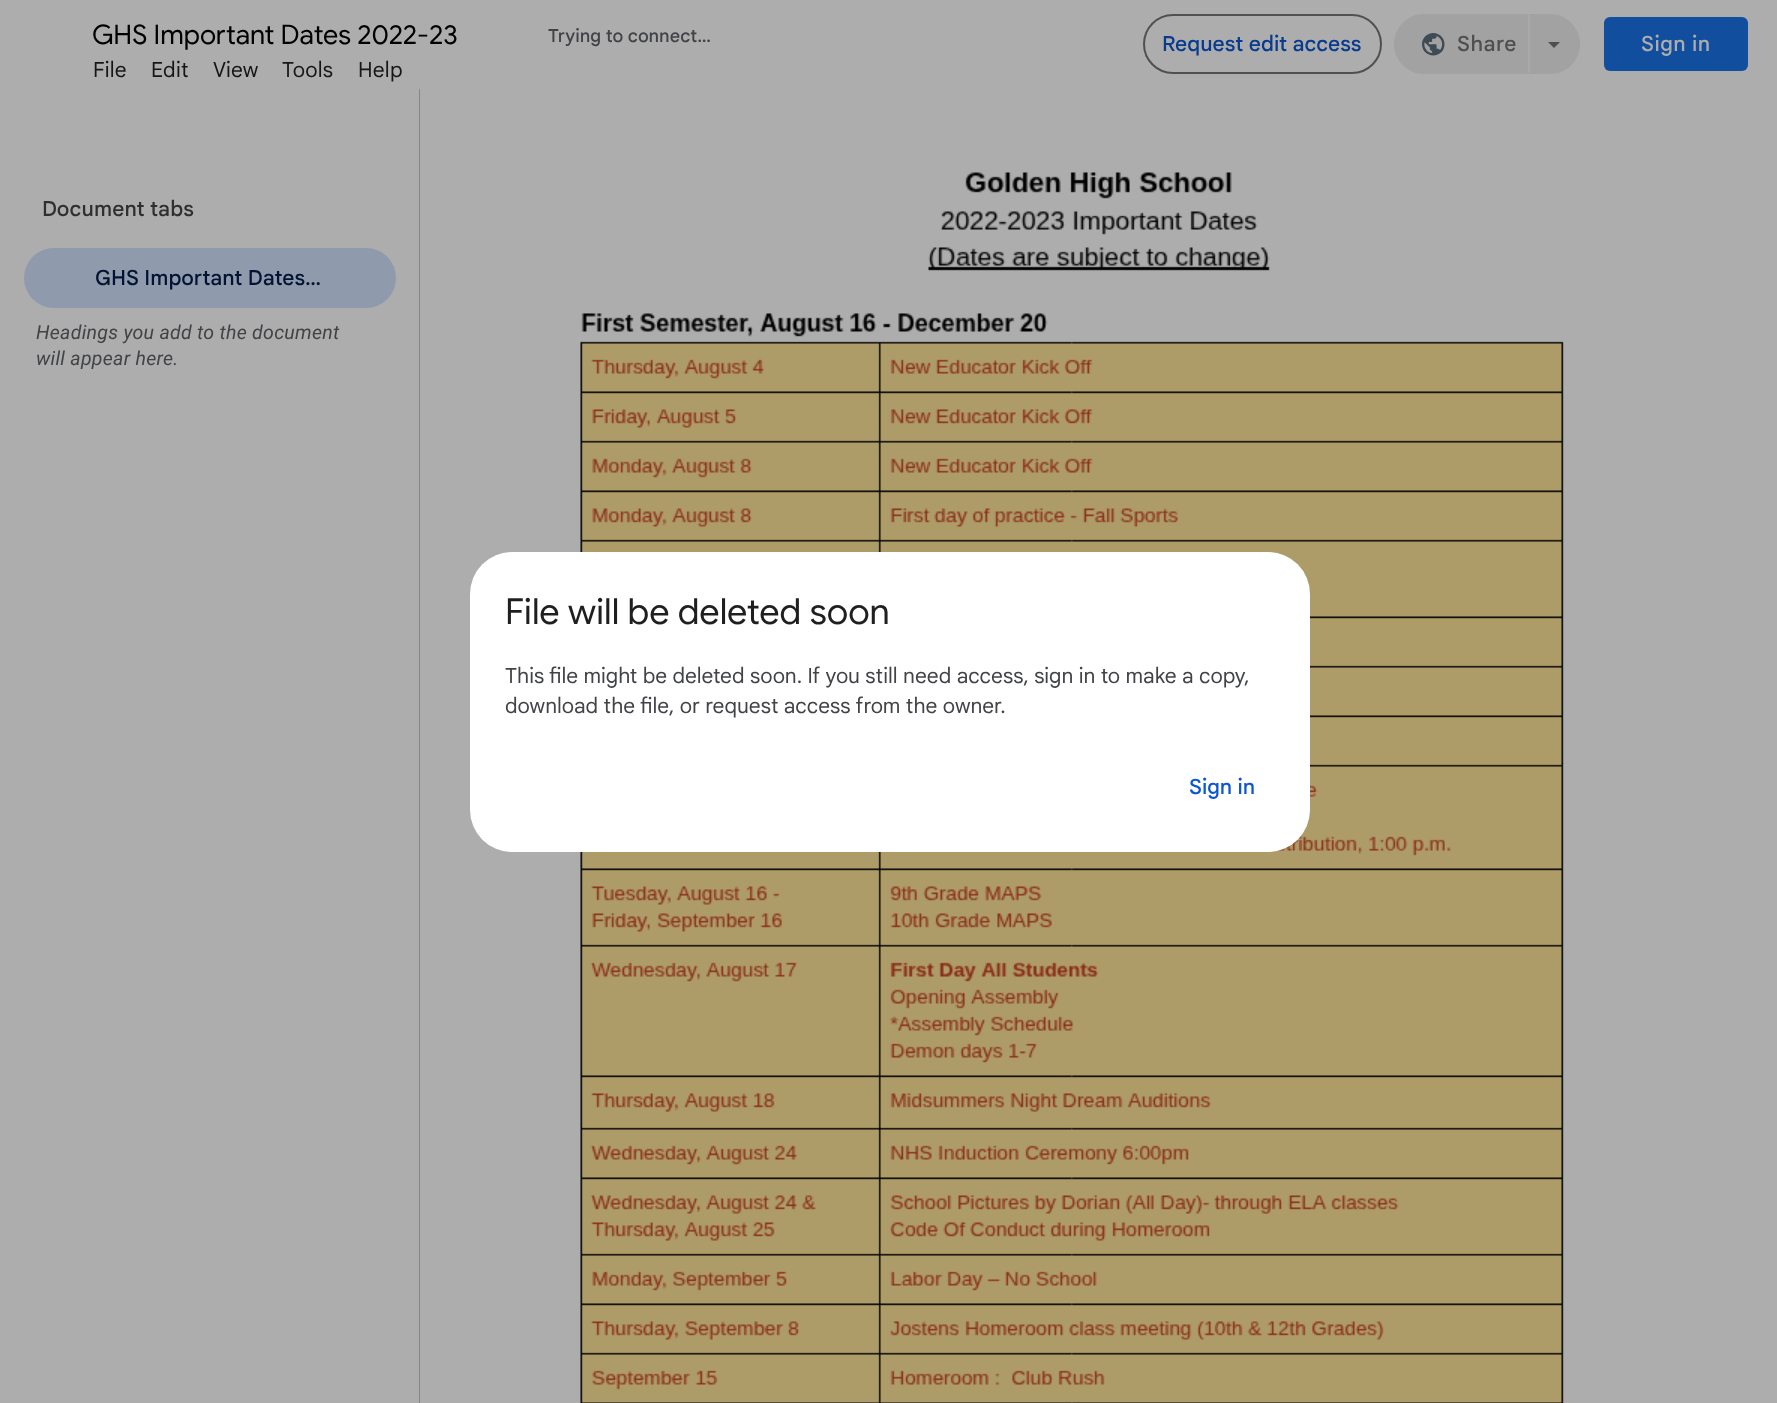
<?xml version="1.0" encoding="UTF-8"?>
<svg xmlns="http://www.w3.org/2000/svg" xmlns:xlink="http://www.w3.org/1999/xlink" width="1777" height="1403">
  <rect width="100%" height="100%" fill="#adadad" />
  <rect x="1144" y="15" width="237" height="58" rx="29" fill="none" stroke="#4f5150" stroke-width="2" />
  <path d="M 1424 14 h 106 v 60 h -106 c -16.5 0 -30 -13.5 -30 -30 c 0 -16.5 13.5 -30 30 -30 z" fill="#a2a2a2" />
  <image x="1422" y="33" width="23" height="23" xlink:href="image1.png" />
  <path d="M 1529 14 h 21 c 16.5 0 30 13.5 30 30 c 0 16.5 -13.5 30 -30 30 h -21 z" fill="#9b9b9b" fill-opacity="0.62" />
  <path d="M 1530 15 l -2 -1 v 60 l 2 -2 z" fill="#a9a9a9" />
  <path d="M 1548 42 h 12 l -6 6 z" fill="#4f4f4f" />
  <rect x="1604" y="17" width="144" height="54" rx="6" fill="#124e9e" />
  <rect x="419" y="89" width="1" height="1314" fill="#878787" />
  <rect x="24" y="248" width="372" height="60" rx="30" fill="#8f9aac" />
  <image x="580" y="172" width="984" height="592" xlink:href="image2.png" />
  <image x="580" y="763" width="984" height="640" xlink:href="image3.png" />
  <rect x="470" y="552" width="840" height="300" rx="42" fill="#ffffff" />
  <text x="92" y="44" style="font-family: 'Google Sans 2'; font-size: 27px; fill: #000000">GHS Important Dates 2022-23</text>
  <text x="548" y="42" style="font-family: Google Sans; font-size: 18px; font-weight: 500; fill: #414347">Trying to connect…</text>
  <text x="1162" y="51" style="font-family: Google Sans; font-size: 21px; font-weight: 500; fill: #073b8d">Request edit access</text>
  <text x="1457" y="51" style="font-family: Google Sans; font-size: 21px; font-weight: 500; letter-spacing: 0.5px; fill: #4f4f4f">Share</text>
  <text x="1641" y="51" style="font-family: Google Sans; font-size: 21px; font-weight: 500; letter-spacing: 0.5px; fill: #adadad">Sign in</text>
  <text x="93" y="77" style="font-family: Google Sans; font-size: 21px; letter-spacing: 0.3px; fill: #161618">File</text>
  <text x="151" y="77" style="font-family: Google Sans; font-size: 21px; letter-spacing: 0.3px; fill: #161618">Edit</text>
  <text x="213" y="77" style="font-family: Google Sans; font-size: 21px; letter-spacing: 0.3px; fill: #161618">View</text>
  <text x="282" y="77" style="font-family: Google Sans; font-size: 21px; letter-spacing: 0.3px; fill: #161618">Tools</text>
  <text x="358" y="77" style="font-family: Google Sans; font-size: 21px; letter-spacing: 0.3px; fill: #161618">Help</text>
  <text x="42" y="216" style="font-family: Google Sans; font-size: 21px; font-weight: 500; letter-spacing: 0.1px; fill: #2e3030">Document tabs</text>
  <text x="95" y="285" style="font-family: Google Sans; font-size: 21px; font-weight: 500; fill: #031432">GHS Important Dates…</text>
  <text x="36" y="339" style="font-family: Roboto; font-size: 19.5px; font-style: italic; letter-spacing: 0.3px; fill: #414347">Headings you add to the document</text>
  <text x="36" y="365" style="font-family: Roboto; font-size: 19.5px; font-style: italic; letter-spacing: 0.3px; fill: #414347">will appear here.</text>
  <text x="505" y="624" style="font-family: 'Google Sans 2'; font-size: 36px; fill: #1f1f1f">File will be deleted soon</text>
  <text x="505" y="683" style="font-family: Google Sans; font-size: 21px; fill: #414347">This file might be deleted soon. If you still need access, sign in to make a copy,</text>
  <text x="505" y="713" style="font-family: Google Sans; font-size: 21px; fill: #414347">download the file, or request access from the owner.</text>
  <text x="1189" y="794" style="font-family: Google Sans; font-size: 21px; font-weight: 500; fill: #0b57d0">Sign in</text>
</svg>
